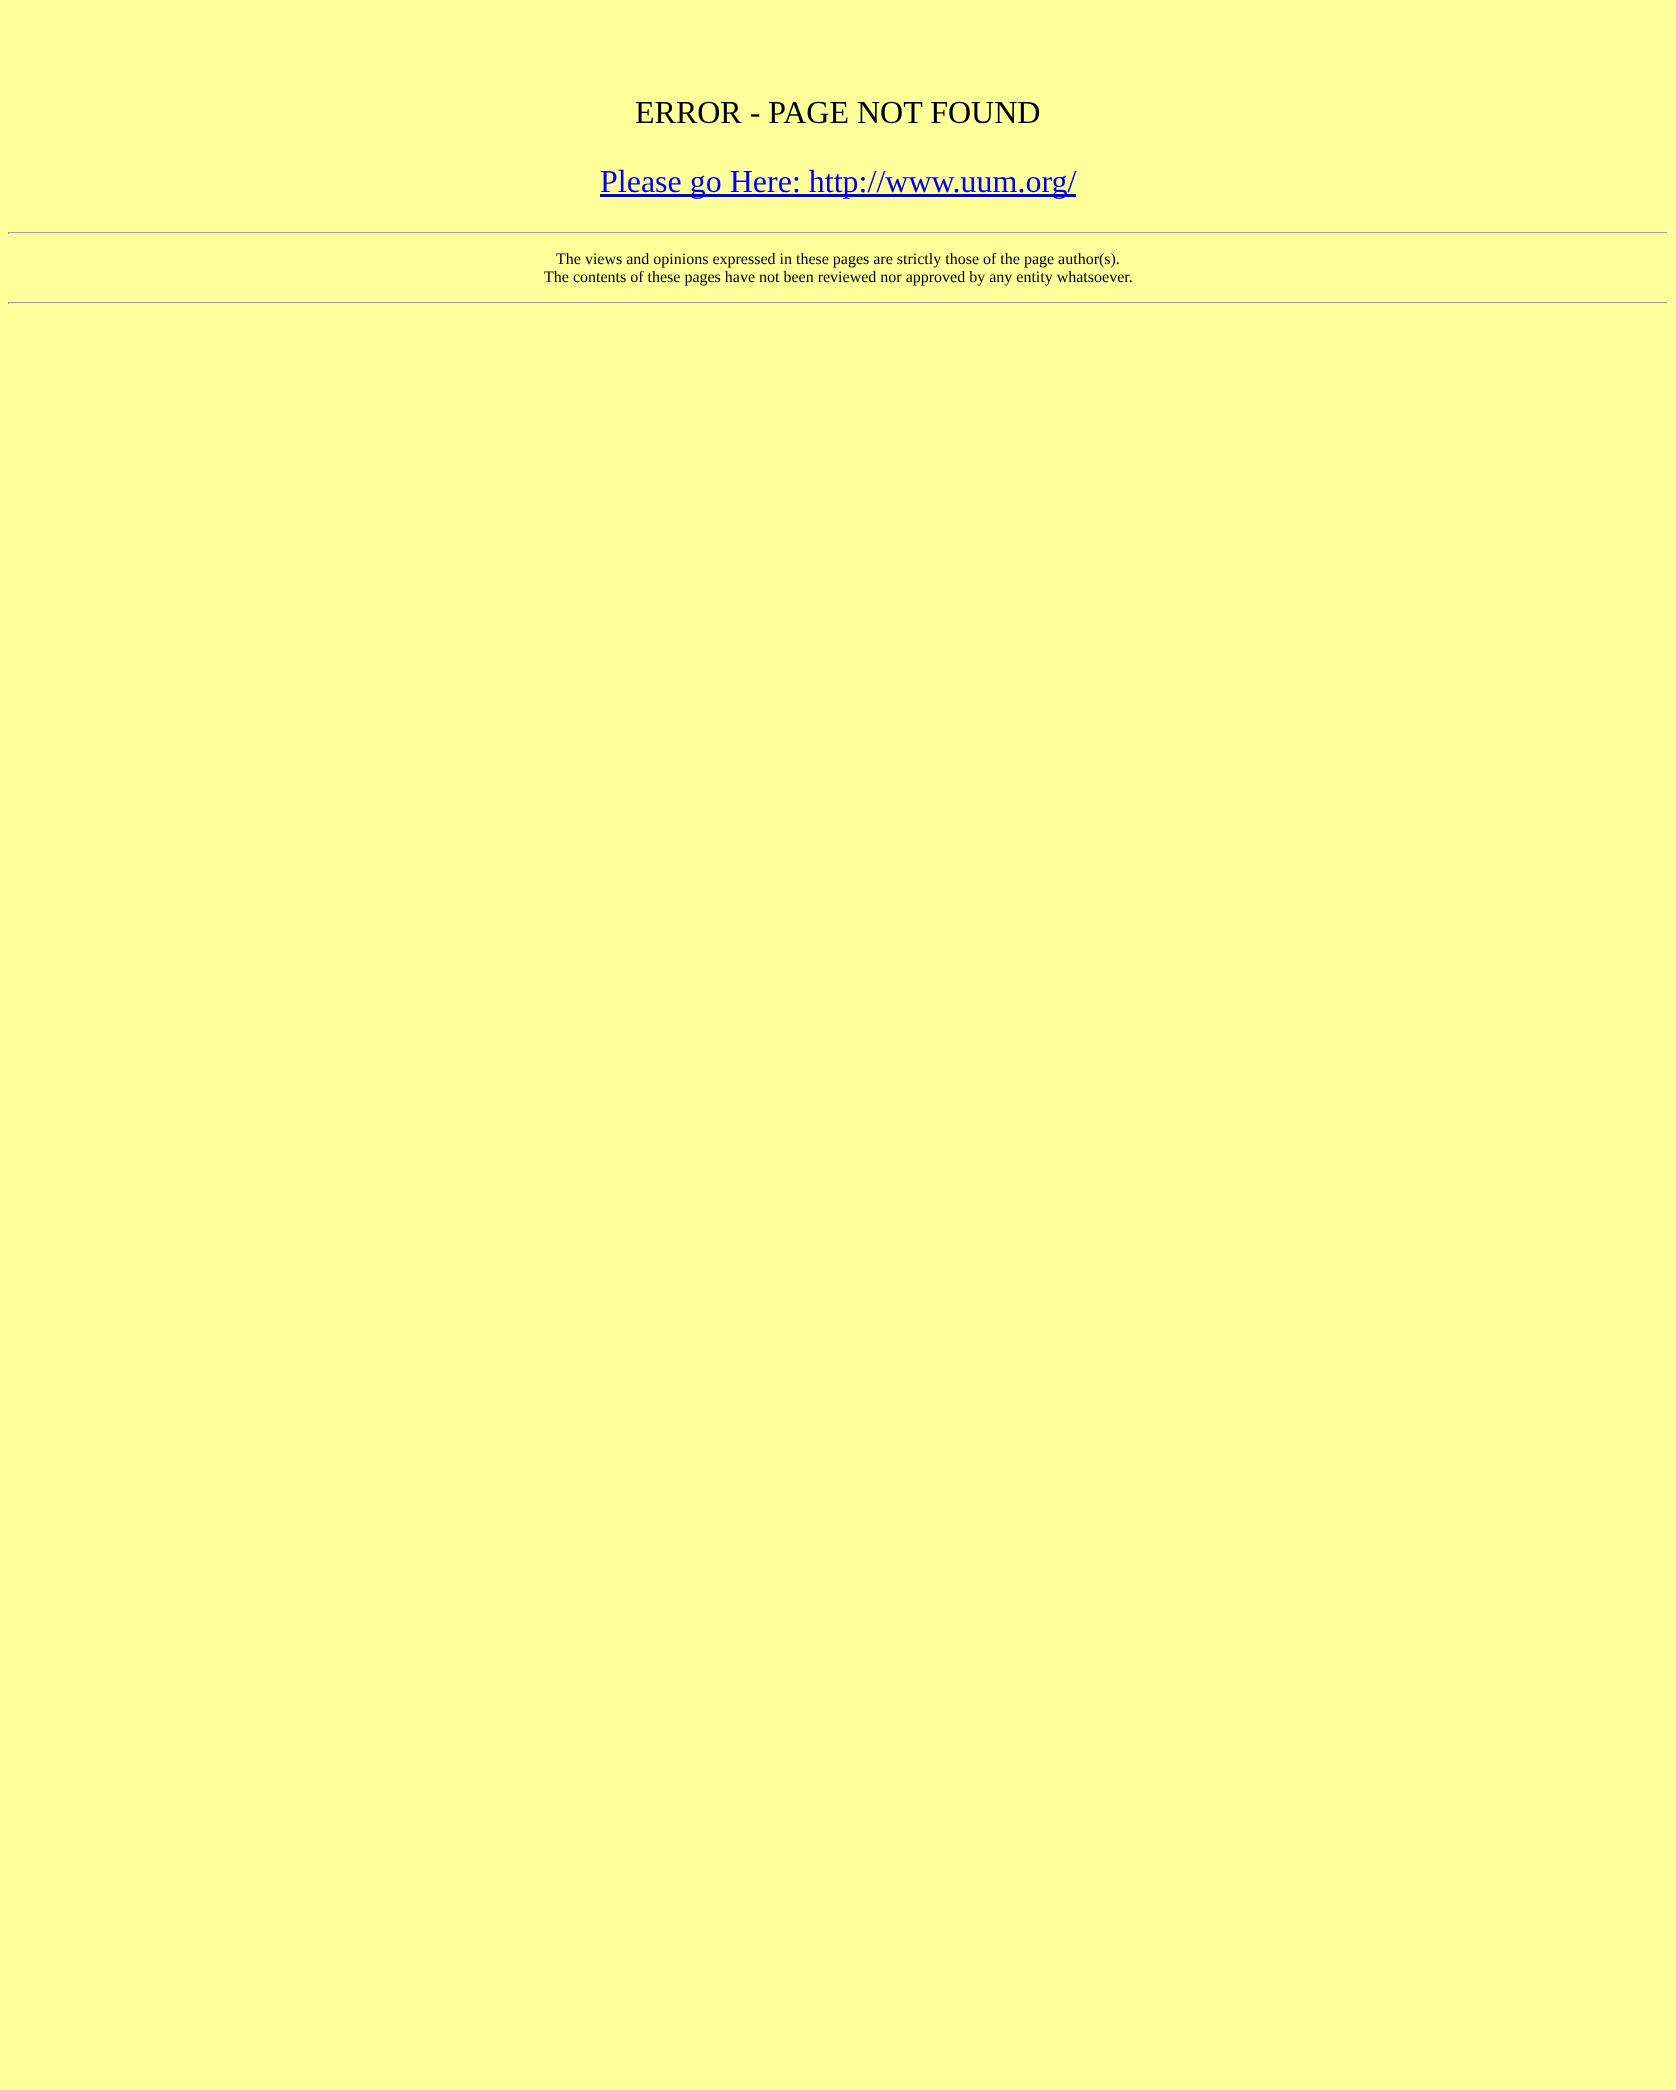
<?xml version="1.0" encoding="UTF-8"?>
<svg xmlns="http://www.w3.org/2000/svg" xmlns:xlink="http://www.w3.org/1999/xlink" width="1676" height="2090">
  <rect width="100%" height="100%" fill="#ffff99" />
  <rect x="600" y="194" width="476" height="3" fill="#0000ee" />
  <rect x="8" y="232" width="1660" height="1" fill="#9f9f9f" />
  <rect x="1667" y="232" width="1" height="2" fill="#eeeeee" />
  <rect x="8" y="233" width="1660" height="1" fill="#eeeeee" />
  <rect x="8" y="232" width="1" height="2" fill="#9f9f9f" />
  <rect x="8" y="302" width="1660" height="1" fill="#9f9f9f" />
  <rect x="1667" y="302" width="1" height="2" fill="#eeeeee" />
  <rect x="8" y="303" width="1660" height="1" fill="#eeeeee" />
  <rect x="8" y="302" width="1" height="2" fill="#9f9f9f" />
  <text x="635" y="123" style="font-family: Liberation Serif; font-size: 32px; fill: #000000">ERROR - PAGE NOT FOUND</text>
  <text x="600" y="192" style="font-family: Liberation Serif; font-size: 32px; fill: #0000ee">Please go Here: http://www.uum.org/</text>
  <text x="556" y="264" style="font-family: Liberation Serif; font-size: 16px; fill: #000000">The views and opinions expressed in these pages are strictly those of the page author(s).</text>
  <text x="544" y="282" style="font-family: Liberation Serif; font-size: 16px; fill: #000000">The contents of these pages have not been reviewed nor approved by any entity whatsoever.</text>
</svg>
